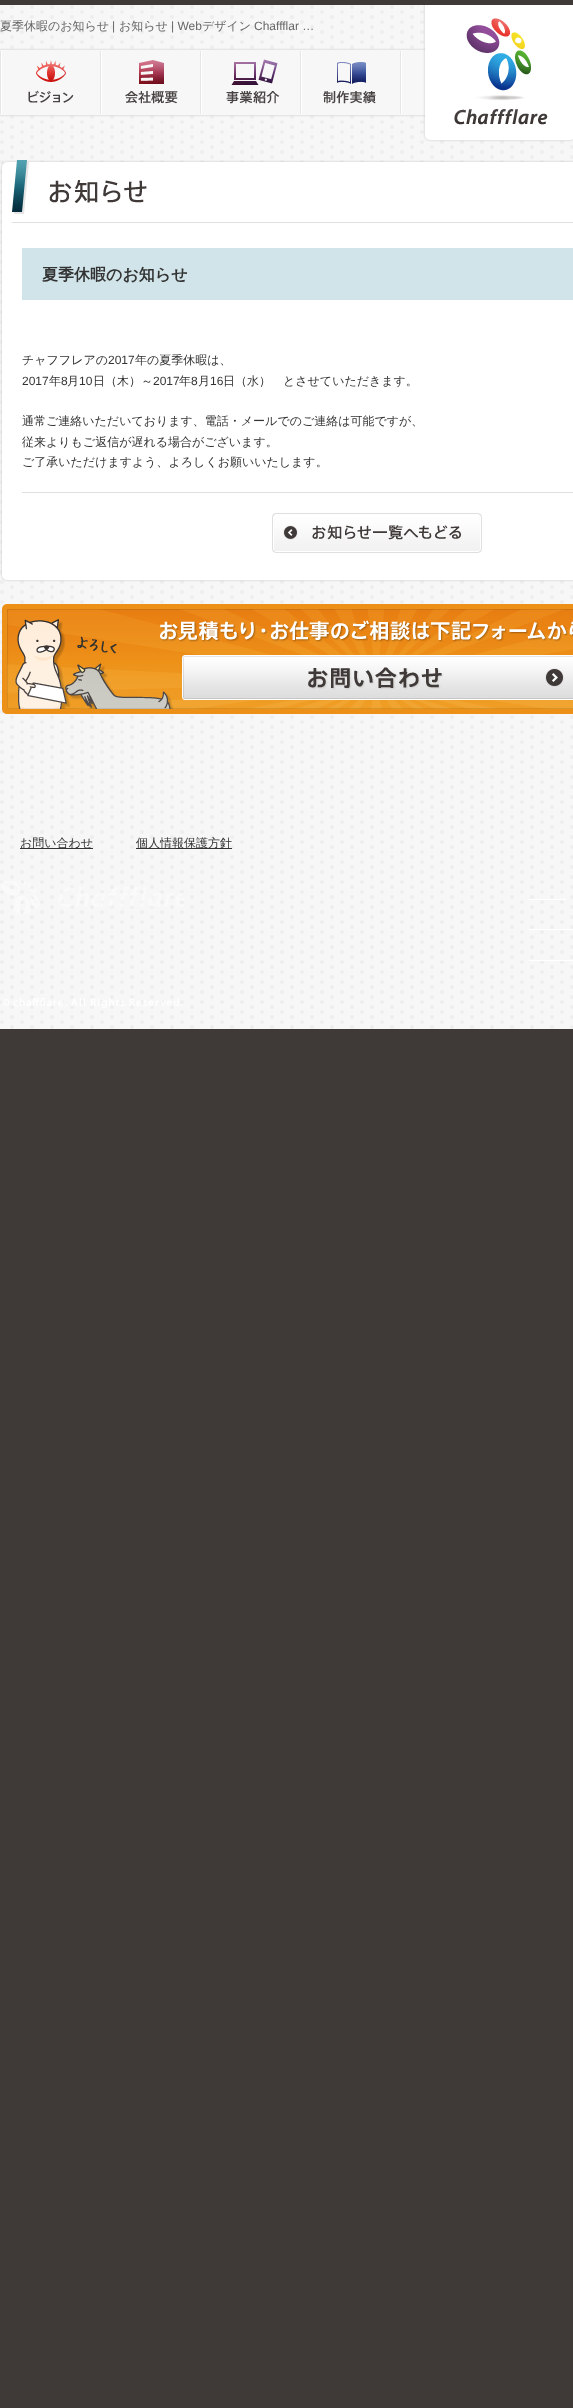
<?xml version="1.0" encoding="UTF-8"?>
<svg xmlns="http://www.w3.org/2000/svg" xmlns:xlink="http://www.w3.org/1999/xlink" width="573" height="2408">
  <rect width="100%" height="100%" fill="#3f3937" />
  <image x="0" y="5" width="573" height="1024" xlink:href="image1.png" />
  <image x="0" y="0" width="573" height="117" xlink:href="image2.png" />
  <image x="423" y="5" width="150" height="137" xlink:href="image3.png" />
  <image x="0" y="51" width="74" height="63" xlink:href="image4.png" />
  <image x="100" y="51" width="78" height="63" xlink:href="image5.png" />
  <image x="200" y="51" width="80" height="63" xlink:href="image6.png" />
  <image x="300" y="51" width="102" height="63" xlink:href="image7.png" />
  <image x="1" y="160" width="572" height="7" xlink:href="image8.png" />
  <image x="1" y="575" width="572" height="7" xlink:href="image9.png" />
  <image x="0" y="167" width="573" height="408" xlink:href="image10.png" />
  <image x="12" y="160" width="561" height="63" xlink:href="image11.png" />
  <rect x="22" y="248" width="551" height="52" fill="#d1e4e9" />
  <rect x="22" y="492" width="551" height="1" fill="#dfdfdf" />
  <image x="272" y="513" width="210" height="40" xlink:href="image12.png" />
  <image x="2" y="604" width="571" height="110" xlink:href="image13.png" />
  <image x="160" y="620" width="413" height="22" xlink:href="image14.png" />
  <image x="182" y="655" width="391" height="45" xlink:href="image15.png" />
  <rect x="20" y="848" width="73" height="1" fill="#333333" />
  <rect x="136" y="848" width="96" height="1" fill="#333333" />
  <image x="1" y="881" width="183" height="33" xlink:href="image16.png" />
  <image x="2" y="998" width="181" height="10" xlink:href="image17.png" />
  <rect x="529" y="899" width="37" height="1" fill="#ffffff" />
  <rect x="529" y="929" width="44" height="1" fill="#ffffff" />
  <rect x="529" y="960" width="44" height="1" fill="#ffffff" />
  <text x="0" y="30" style="font-family: WenQuanYi Zen Hei; font-size: 12px; font-weight: 500; fill: #666666">夏季休暇のお知らせ</text>
  <text x="112" y="30" style="font-family: Liberation Sans; font-size: 12px; fill: #666666">|</text>
  <text x="119" y="30" style="font-family: WenQuanYi Zen Hei; font-size: 12px; font-weight: 500; fill: #666666">お知らせ</text>
  <text x="171" y="30" style="font-family: Liberation Sans; font-size: 12px; fill: #666666">| Web</text>
  <text x="202" y="30" style="font-family: WenQuanYi Zen Hei; font-size: 12px; font-weight: 500; fill: #666666">デザイン</text>
  <text x="254" y="30" style="font-family: Liberation Sans; font-size: 12px; fill: #666666">Chaffflar …</text>
  <text x="42" y="280" style="font-family: WenQuanYi Zen Hei; font-size: 16px; font-weight: bold; fill: #333333">夏季休暇のお知らせ</text>
  <text x="22" y="364" style="font-family: WenQuanYi Zen Hei; font-size: 12px; font-weight: 500; fill: #333333">チャフフレアの</text>
  <text x="108" y="364" style="font-family: Liberation Sans; font-size: 12px; fill: #333333">2017</text>
  <text x="135" y="364" style="font-family: WenQuanYi Zen Hei; font-size: 12px; font-weight: 500; fill: #333333">年の夏季休暇は、</text>
  <text x="22" y="385" style="font-family: Liberation Sans; font-size: 12px; fill: #333333">2017</text>
  <text x="49" y="385" style="font-family: WenQuanYi Zen Hei; font-size: 12px; font-weight: 500; fill: #333333">年</text>
  <text x="61" y="385" style="font-family: Liberation Sans; font-size: 12px; fill: #333333">8</text>
  <text x="67" y="385" style="font-family: WenQuanYi Zen Hei; font-size: 12px; font-weight: 500; fill: #333333">月</text>
  <text x="79" y="385" style="font-family: Liberation Sans; font-size: 12px; fill: #333333">10</text>
  <text x="93" y="385" style="font-family: WenQuanYi Zen Hei; font-size: 12px; font-weight: 500; fill: #333333">日（木）～</text>
  <text x="153" y="385" style="font-family: Liberation Sans; font-size: 12px; fill: #333333">2017</text>
  <text x="179" y="385" style="font-family: WenQuanYi Zen Hei; font-size: 12px; font-weight: 500; fill: #333333">年</text>
  <text x="191" y="385" style="font-family: Liberation Sans; font-size: 12px; fill: #333333">8</text>
  <text x="198" y="385" style="font-family: WenQuanYi Zen Hei; font-size: 12px; font-weight: 500; fill: #333333">月</text>
  <text x="210" y="385" style="font-family: Liberation Sans; font-size: 12px; fill: #333333">16</text>
  <text x="223" y="385" style="font-family: WenQuanYi Zen Hei; font-size: 12px; font-weight: 500; fill: #333333">日（水）　とさせていただきます。</text>
  <text x="22" y="425" style="font-family: WenQuanYi Zen Hei; font-size: 12px; font-weight: 500; fill: #333333">通常ご連絡いただいております、電話・メールでのご連絡は可能ですが、</text>
  <text x="22" y="446" style="font-family: WenQuanYi Zen Hei; font-size: 12px; font-weight: 500; fill: #333333">従来よりもご返信が遅れる場合がございます。</text>
  <text x="22" y="466" style="font-family: WenQuanYi Zen Hei; font-size: 12px; font-weight: 500; fill: #333333">ご了承いただけますよう、よろしくお願いいたします。</text>
  <text x="20" y="847" style="font-family: WenQuanYi Zen Hei; font-size: 12px; font-weight: 500; fill: #333333">お問い合わせ</text>
  <text x="136" y="847" style="font-family: WenQuanYi Zen Hei; font-size: 12px; font-weight: 500; fill: #333333">個人情報保護方針</text>
</svg>
